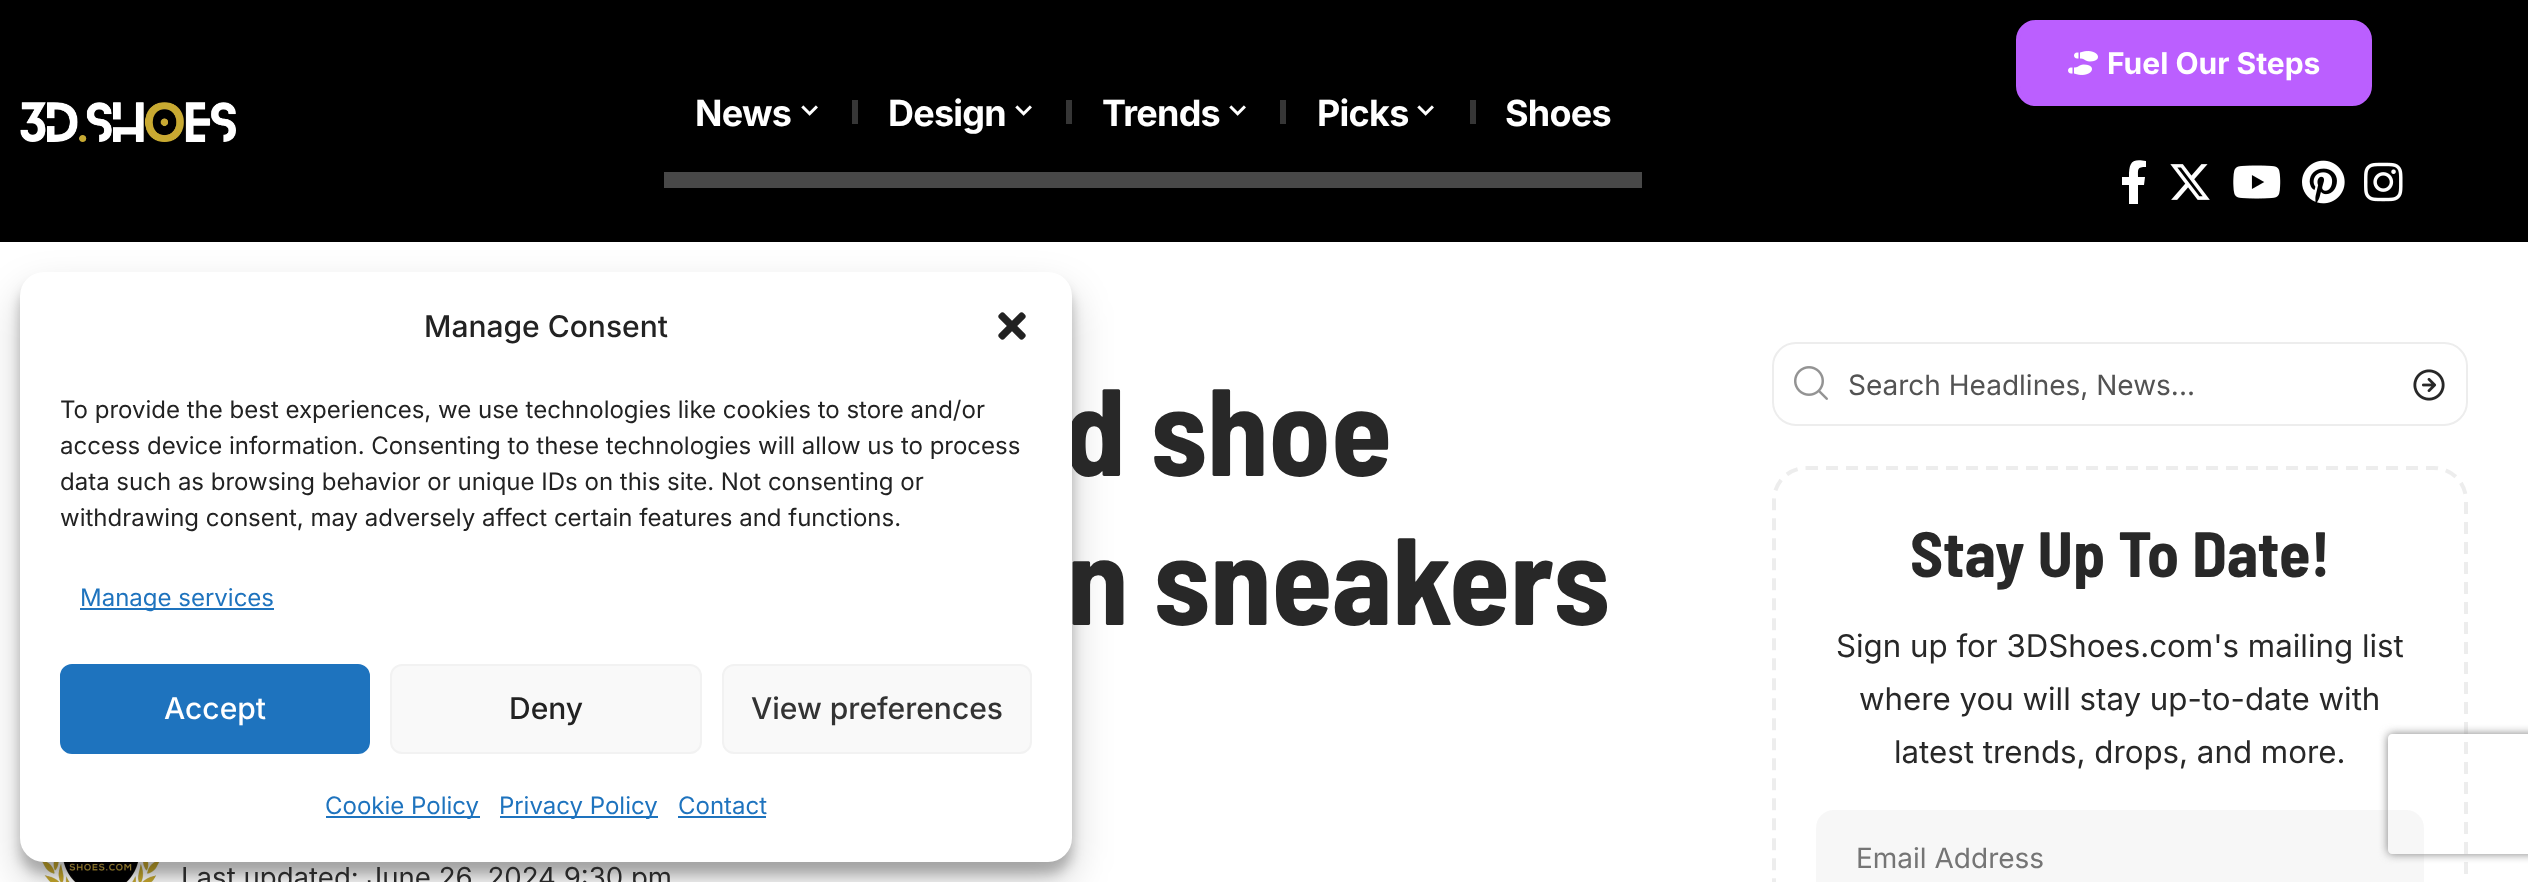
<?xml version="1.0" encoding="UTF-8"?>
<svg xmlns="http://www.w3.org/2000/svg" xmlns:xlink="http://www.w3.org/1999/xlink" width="2528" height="882">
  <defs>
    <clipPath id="clip1"><path d="M 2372 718 h 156 v 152 h -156 z m 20 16 h 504 c 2 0 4 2 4 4 v 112 c 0 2 -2 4 -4 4 h -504 c -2 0 -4 -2 -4 -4 v -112 c 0 -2 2 -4 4 -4 z" clip-rule="evenodd" /></clipPath>
  </defs>
  <rect width="100%" height="100%" fill="#ffffff" />
  <rect width="2528" height="242" fill="#000000" />
  <rect x="2018" y="22" width="352" height="82" rx="18" fill="#bb5fff" stroke="#bb5fff" stroke-width="4" />
  <image x="2068" y="51" width="30" height="24" xlink:href="image1.png" />
  <path d="M 2144 185 l 1 -8 h -7 c 0 -8 -1 -10 8 -10 v -6 c -15 -3 -17 2 -17 16 h -7 v 8 h 7 v 19 h 9 v -19 z" fill="#ffffff" />
  <image x="2170" y="164" width="40" height="36" xlink:href="image2.png" />
  <image x="2233" y="165" width="48" height="34" xlink:href="image3.png" />
  <image x="2302" y="160" width="43" height="44" xlink:href="image4.png" />
  <image x="2364" y="162" width="39" height="40" xlink:href="image5.png" />
  <image x="20" y="102" width="216" height="40" xlink:href="image6.png" />
  <rect x="664" y="172" width="978" height="16" fill="#484848" />
  <image x="801" y="105" width="17" height="11" xlink:href="image7.png" />
  <rect x="852" y="100" width="6" height="24" fill="#363636" />
  <image x="1015" y="105" width="17" height="11" xlink:href="image7.png" />
  <rect x="1066" y="100" width="6" height="24" fill="#363636" />
  <image x="1229" y="105" width="17" height="11" xlink:href="image7.png" />
  <rect x="1280" y="100" width="6" height="24" fill="#363636" />
  <image x="1417" y="105" width="17" height="11" xlink:href="image7.png" />
  <rect x="1470" y="100" width="6" height="24" fill="#363636" />
  <image x="41" y="861" width="119" height="21" xlink:href="image8.png" />
  <rect x="1773" y="343" width="694" height="82" rx="23" fill="none" stroke="#ededed" stroke-width="2" />
  <image x="1794" y="366" width="34" height="34" xlink:href="image9.png" />
  <image x="2413" y="369" width="32" height="32" xlink:href="image10.png" />
  <g clip-path="url(#clip1)">
    <rect x="2388" y="734" width="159" height="120" rx="4" fill="#808080" filter="blur(5px)" />
  </g>
  <path d="M 1806 468 h 628 c 17.5 0 32 14.5 32 32 v 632 c 0 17.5 -14.5 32 -32 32 h -628 c -17.5 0 -32 -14.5 -32 -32 v -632 c 0 -17.5 14.5 -32 32 -32 z" fill="none" stroke="#888888" stroke-opacity="0.15" stroke-width="4" stroke-dasharray="12 8" />
  <rect x="1816" y="810" width="608" height="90" rx="18" fill="#888888" fill-opacity="0.07" />
  <rect x="20" y="284" width="1052" height="590" rx="24" fill="#000000" fill-opacity="0.23" filter="blur(6px)" />
  <rect x="20" y="292" width="1052" height="590" rx="24" fill="#000000" fill-opacity="0.19" filter="blur(20px)" />
  <text x="2107" y="74" style="font-family: Inter; font-size: 30px; font-weight: bold; fill: #ffffff">Fuel Our Steps</text>
  <text x="695" y="126" style="font-family: Inter; font-size: 36px; font-weight: bold; letter-spacing: -0.75px; fill: #ffffff">News</text>
  <text x="888" y="126" style="font-family: Inter; font-size: 36px; font-weight: bold; letter-spacing: -0.75px; fill: #ffffff">Design</text>
  <text x="1102" y="126" style="font-family: Inter; font-size: 36px; font-weight: bold; letter-spacing: -0.75px; fill: #ffffff">Trends</text>
  <text x="1317" y="126" style="font-family: Inter; font-size: 36px; font-weight: bold; letter-spacing: -0.75px; fill: #ffffff">Picks</text>
  <text x="1505" y="126" style="font-family: Inter; font-size: 36px; font-weight: bold; letter-spacing: -0.75px; fill: #ffffff">Shoes</text>
  <text x="1063" y="476" style="font-family: Barlow Semi Condensed; font-size: 124px; font-weight: bold; fill: #282828">d shoe</text>
  <text x="1067" y="625" style="font-family: Barlow Semi Condensed; font-size: 124px; font-weight: bold; fill: #282828">n sneakers</text>
  <text x="181" y="887" style="font-family: Inter; font-size: 27.6px; fill: #282828">Last updated: June 26, 2024 9:30 pm</text>
  <text x="1848" y="395" style="font-family: Inter; font-size: 28px; fill: #535353">Search Headlines, News...</text>
  <text x="1910" y="577" style="font-family: Barlow Semi Condensed; font-size: 64px; font-weight: bold; fill: #282828">Stay Up To Date!</text>
  <text x="1836" y="657" style="font-family: Inter; font-size: 31.25px; fill: #282828">Sign up for 3DShoes.com's mailing list</text>
  <text x="1859" y="710" style="font-family: Inter; font-size: 31.25px; fill: #282828">where you will stay up-to-date with</text>
  <text x="1894" y="763" style="font-family: Inter; font-size: 31.25px; fill: #282828">latest trends, drops, and more.</text>
  <text x="1856" y="868" style="font-family: Inter; font-size: 28px; fill: #757575">Email Address</text>
  <rect x="20" y="272" width="1052" height="590" rx="24" fill="#ffffff" />
  <text x="424" y="337" style="font-family: Inter; font-size: 30px; font-weight: 500; fill: #222222">Manage Consent</text>
  <image x="998" y="312" width="28" height="28" xlink:href="image11.png" />
  <text x="60" y="418" style="font-family: Inter; font-size: 24px; fill: #222222">To provide the best experiences, we use technologies like cookies to store and/or</text>
  <text x="60" y="454" style="font-family: Inter; font-size: 24px; fill: #222222">access device information. Consenting to these technologies will allow us to process</text>
  <text x="60" y="490" style="font-family: Inter; font-size: 24px; fill: #222222">data such as browsing behavior or unique IDs on this site. Not consenting or</text>
  <text x="60" y="526" style="font-family: Inter; font-size: 24px; fill: #222222">withdrawing consent, may adversely affect certain features and functions.</text>
  <rect x="80" y="608" width="194" height="2" fill="#1e73be" />
  <text x="80" y="606" style="font-family: Inter; font-size: 24px; fill: #1e73be">Manage services</text>
  <rect x="61" y="665" width="308" height="88" rx="11" fill="#1e73be" stroke="#1e73be" stroke-width="2" />
  <text x="164" y="719" style="font-family: Inter; font-size: 30px; font-weight: 500; fill: #ffffff">Accept</text>
  <rect x="391" y="665" width="310" height="88" rx="11" fill="#f9f9f9" stroke="#f2f2f2" stroke-width="2" />
  <text x="509" y="719" style="font-family: Inter; font-size: 30px; font-weight: 500; fill: #222222">Deny</text>
  <rect x="723" y="665" width="308" height="88" rx="11" fill="#f9f9f9" stroke="#f2f2f2" stroke-width="2" />
  <text x="751" y="719" style="font-family: Inter; font-size: 30px; font-weight: 500; fill: #333333">View preferences</text>
  <rect x="326" y="816" width="154" height="2" fill="#1e73be" />
  <text x="325" y="814" style="font-family: Inter; font-size: 24px; fill: #1e73be">Cookie Policy</text>
  <rect x="500" y="816" width="158" height="2" fill="#1e73be" />
  <text x="499" y="814" style="font-family: Inter; font-size: 24px; fill: #1e73be">Privacy Policy</text>
  <text x="678" y="814" style="font-family: Inter; font-size: 24px; fill: #1e73be">Contact</text>
  <rect x="678" y="816" width="88" height="2" fill="#1e73be" />
</svg>
